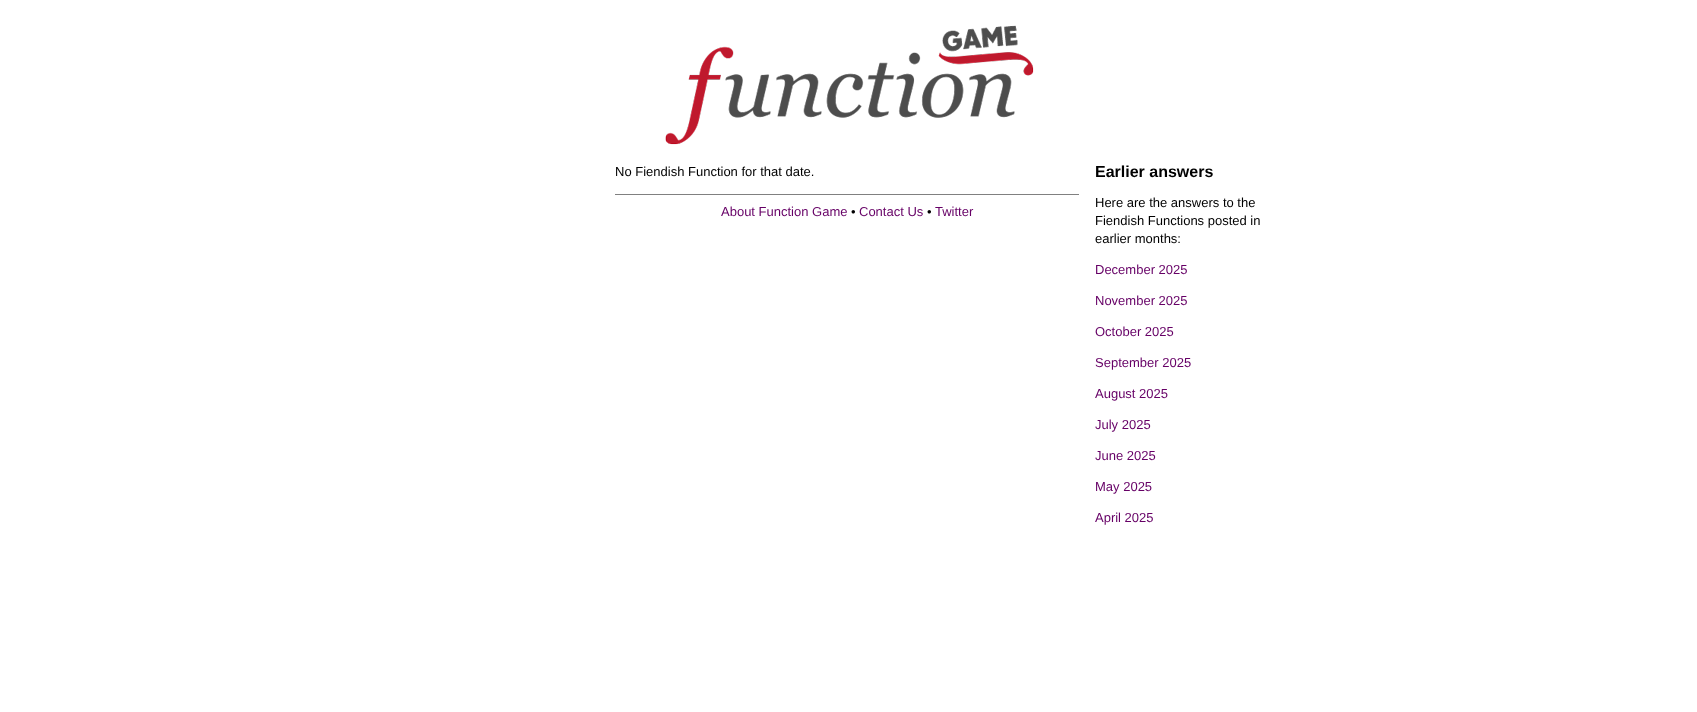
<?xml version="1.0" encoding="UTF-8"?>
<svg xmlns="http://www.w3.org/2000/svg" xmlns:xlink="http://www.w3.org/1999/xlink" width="1697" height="712">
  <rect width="100%" height="100%" fill="#ffffff" />
  <image x="665" y="25" width="369" height="120" xlink:href="image1.png" />
  <rect x="615" y="194" width="464" height="1" fill="#808080" />
  <text x="615" y="176" style="font-family: Liberation Sans; font-size: 13px; fill: #000000">No Fiendish Function for that date.</text>
  <text x="721" y="216" style="font-family: Liberation Sans; font-size: 13px; fill: #660066">About Function Game</text>
  <text x="851" y="216" style="font-family: Liberation Sans; font-size: 13px; fill: #000000">•</text>
  <text x="859" y="216" style="font-family: Liberation Sans; font-size: 13px; fill: #660066">Contact Us</text>
  <text x="927" y="216" style="font-family: Liberation Sans; font-size: 13px; fill: #000000">•</text>
  <text x="935" y="216" style="font-family: Liberation Sans; font-size: 13px; fill: #660066">Twitter</text>
  <text x="1095" y="177" style="font-family: Liberation Sans; font-size: 16px; font-weight: bold; fill: #000000">Earlier answers</text>
  <text x="1095" y="207" style="font-family: Liberation Sans; font-size: 13px; fill: #000000">Here are the answers to the</text>
  <text x="1095" y="225" style="font-family: Liberation Sans; font-size: 13px; fill: #000000">Fiendish Functions posted in</text>
  <text x="1095" y="243" style="font-family: Liberation Sans; font-size: 13px; fill: #000000">earlier months:</text>
  <text x="1095" y="274" style="font-family: Liberation Sans; font-size: 13px; fill: #660066">December 2025</text>
  <text x="1095" y="305" style="font-family: Liberation Sans; font-size: 13px; fill: #660066">November 2025</text>
  <text x="1095" y="336" style="font-family: Liberation Sans; font-size: 13px; fill: #660066">October 2025</text>
  <text x="1095" y="367" style="font-family: Liberation Sans; font-size: 13px; fill: #660066">September 2025</text>
  <text x="1095" y="398" style="font-family: Liberation Sans; font-size: 13px; fill: #660066">August 2025</text>
  <text x="1095" y="429" style="font-family: Liberation Sans; font-size: 13px; fill: #660066">July 2025</text>
  <text x="1095" y="460" style="font-family: Liberation Sans; font-size: 13px; fill: #660066">June 2025</text>
  <text x="1095" y="491" style="font-family: Liberation Sans; font-size: 13px; fill: #660066">May 2025</text>
  <text x="1095" y="522" style="font-family: Liberation Sans; font-size: 13px; fill: #660066">April 2025</text>
</svg>
